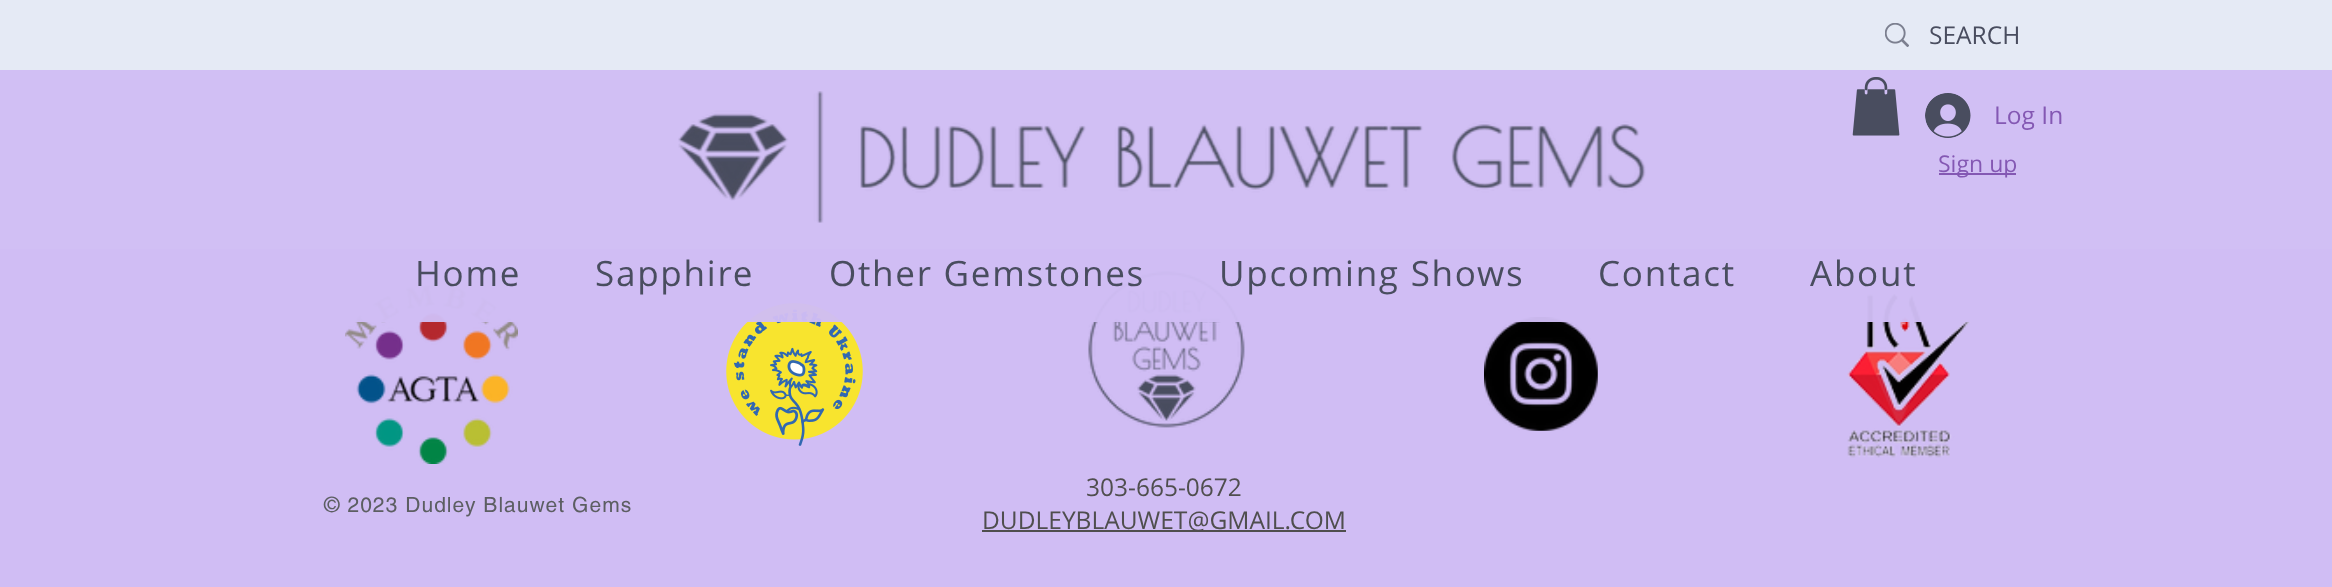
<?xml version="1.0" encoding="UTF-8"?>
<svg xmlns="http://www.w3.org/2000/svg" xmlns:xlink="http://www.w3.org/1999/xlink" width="2332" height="587">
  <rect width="100%" height="100%" fill="#ffffff" />
  <rect width="2332" height="70" fill="#e5eaf5" />
  <image x="1885" y="23" width="24" height="24" xlink:href="image1.png" />
  <rect y="249" width="2332" height="338" fill="#d0bdf4" />
  <image x="345" y="285" width="173" height="179" xlink:href="image5.png" />
  <image x="726" y="303" width="137" height="143" xlink:href="image6.png" />
  <image x="1088" y="271" width="157" height="157" xlink:href="image7.png" />
  <image x="1484" y="317" width="114" height="114" xlink:href="image8.png" />
  <image x="1847" y="293" width="124" height="165" xlink:href="image9.png" />
  <rect y="70" width="2332" height="252" fill="#d0bdf4" fill-opacity="0.97" />
  <image x="678" y="91" width="968" height="132" xlink:href="image2.png" />
  <image x="1852" y="77" width="48" height="59" xlink:href="image3.png" />
  <image x="1925" y="93" width="46" height="45" xlink:href="image4.png" />
  <rect x="1939" y="173" width="77" height="2" fill="#8458b3" />
  <rect x="982" y="530" width="364" height="2" fill="#4f4e4e" />
  <text x="1929" y="44" style="font-family: Open Sans; font-size: 24.5px; fill: #494d5f">SEARCH</text>
  <text x="1994" y="124" style="font-family: Open Sans; font-size: 24.5px; fill: #8458b3">Log In</text>
  <text x="1938" y="172" style="font-family: Open Sans; font-size: 23px; fill: #8458b3">Sign up</text>
  <text x="415" y="286" style="font-family: Open Sans; font-size: 35px; letter-spacing: 1.75px; fill: #494d5f">Home</text>
  <text x="595" y="286" style="font-family: Open Sans; font-size: 35px; letter-spacing: 1.75px; fill: #494d5f">Sapphire</text>
  <text x="829" y="286" style="font-family: Open Sans; font-size: 35px; letter-spacing: 1.75px; fill: #494d5f">Other Gemstones</text>
  <text x="1219" y="286" style="font-family: Open Sans; font-size: 35px; letter-spacing: 1.75px; fill: #494d5f">Upcoming Shows</text>
  <text x="1598" y="286" style="font-family: Open Sans; font-size: 35px; letter-spacing: 1.75px; fill: #494d5f">Contact</text>
  <text x="1810" y="286" style="font-family: Open Sans; font-size: 35px; letter-spacing: 1.75px; fill: #494d5f">About</text>
  <text x="324" y="512" style="font-family: helvetica; font-size: 21px; letter-spacing: 1.05px; fill: #5c5e62">© 2023 Dudley Blauwet Gems</text>
  <text x="1086" y="496" style="font-family: Open Sans; font-size: 24.5px; fill: #4f4e4e">303-665-0672</text>
  <text x="982" y="529" style="font-family: Open Sans; font-size: 24.5px; fill: #4f4e4e">DUDLEYBLAUWET@GMAIL.COM</text>
</svg>
